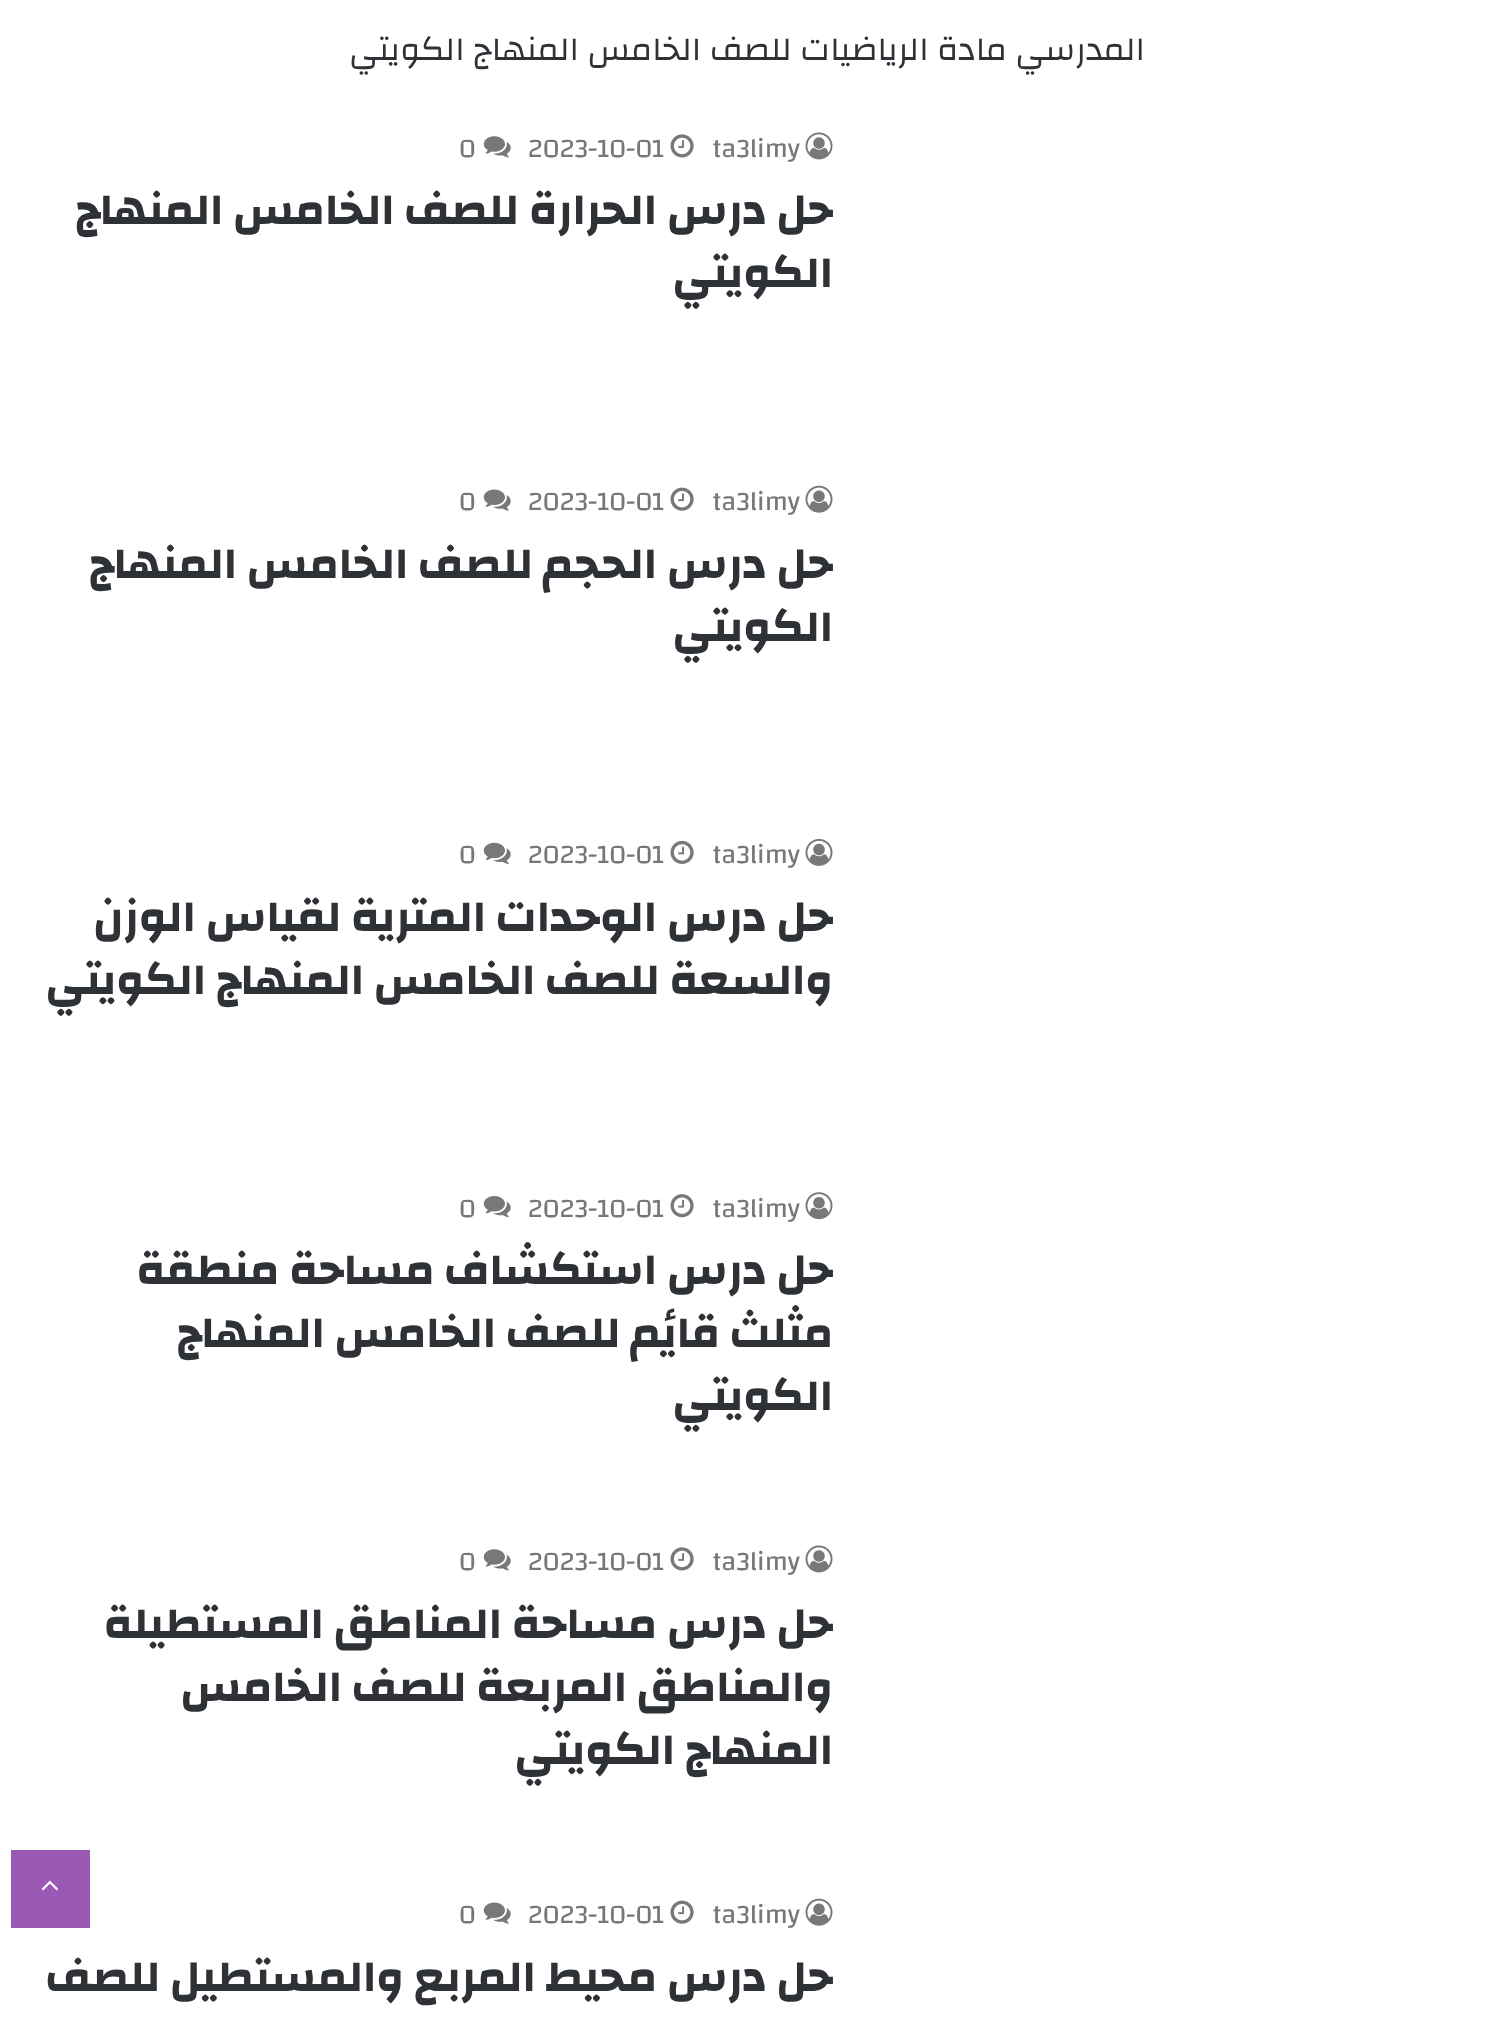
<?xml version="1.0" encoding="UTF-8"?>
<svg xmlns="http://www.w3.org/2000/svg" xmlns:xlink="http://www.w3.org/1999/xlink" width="1493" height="2029">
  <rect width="100%" height="100%" fill="#ffffff" />
  <image x="805" y="132" width="28" height="28" xlink:href="image1.png" />
  <image x="670" y="134" width="24" height="24" xlink:href="image2.png" />
  <image x="483" y="136" width="28" height="22" xlink:href="image3.png" />
  <image x="805" y="485" width="28" height="28" xlink:href="image4.png" />
  <image x="670" y="487" width="24" height="24" xlink:href="image5.png" />
  <image x="483" y="489" width="28" height="22" xlink:href="image6.png" />
  <image x="805" y="839" width="28" height="27" xlink:href="image7.png" />
  <image x="670" y="840" width="24" height="24" xlink:href="image8.png" />
  <image x="483" y="842" width="28" height="22" xlink:href="image9.png" />
  <image x="805" y="1192" width="28" height="28" xlink:href="image10.png" />
  <image x="670" y="1194" width="24" height="24" xlink:href="image11.png" />
  <image x="483" y="1196" width="28" height="22" xlink:href="image12.png" />
  <image x="805" y="1545" width="28" height="28" xlink:href="image1.png" />
  <image x="670" y="1547" width="24" height="24" xlink:href="image2.png" />
  <image x="483" y="1549" width="28" height="22" xlink:href="image3.png" />
  <image x="805" y="1898" width="28" height="28" xlink:href="image4.png" />
  <image x="670" y="1900" width="24" height="24" xlink:href="image5.png" />
  <image x="483" y="1902" width="28" height="22" xlink:href="image6.png" />
  <rect x="11" y="1850" width="79" height="78" fill="#9b59b6" />
  <image x="41" y="1880" width="17" height="11" xlink:href="image13.png" />
  <text x="1145" y="60" style="font-family: Changa; font-size: 33.75px; direction: rtl; fill: #2e3136">المدرسي مادة الرياضيات للصف الخامس المنهاج الكويتي</text>
  <text x="712" y="157" style="font-family: Changa; font-size: 27px; fill: #777777">ta3limy</text>
  <text x="528" y="157" style="font-family: Changa; font-size: 27px; fill: #777777">2023-10-01</text>
  <text x="459" y="157" style="font-family: Changa; font-size: 27px; fill: #777777">0</text>
  <text x="833" y="224" style="font-family: Changa; font-size: 45px; font-weight: bold; direction: rtl; fill: #2e3136">حل درس الحرارة للصف الخامس المنهاج</text>
  <text x="833" y="287" style="font-family: Changa; font-size: 45px; font-weight: bold; direction: rtl; fill: #2e3136">الكويتي</text>
  <text x="712" y="510" style="font-family: Changa; font-size: 27px; fill: #777777">ta3limy</text>
  <text x="528" y="510" style="font-family: Changa; font-size: 27px; fill: #777777">2023-10-01</text>
  <text x="459" y="510" style="font-family: Changa; font-size: 27px; fill: #777777">0</text>
  <text x="833" y="578" style="font-family: Changa; font-size: 45px; font-weight: bold; direction: rtl; fill: #2e3136">حل درس الحجم للصف الخامس المنهاج</text>
  <text x="833" y="641" style="font-family: Changa; font-size: 45px; font-weight: bold; direction: rtl; fill: #2e3136">الكويتي</text>
  <text x="712" y="863" style="font-family: Changa; font-size: 27px; fill: #777777">ta3limy</text>
  <text x="528" y="863" style="font-family: Changa; font-size: 27px; fill: #777777">2023-10-01</text>
  <text x="459" y="863" style="font-family: Changa; font-size: 27px; fill: #777777">0</text>
  <text x="833" y="931" style="font-family: Changa; font-size: 45px; font-weight: bold; direction: rtl; fill: #2e3136">حل درس الوحدات المترية لقياس الوزن</text>
  <text x="833" y="994" style="font-family: Changa; font-size: 45px; font-weight: bold; direction: rtl; fill: #2e3136">والسعة للصف الخامس المنهاج الكويتي</text>
  <text x="712" y="1217" style="font-family: Changa; font-size: 27px; fill: #777777">ta3limy</text>
  <text x="528" y="1217" style="font-family: Changa; font-size: 27px; fill: #777777">2023-10-01</text>
  <text x="459" y="1217" style="font-family: Changa; font-size: 27px; fill: #777777">0</text>
  <text x="833" y="1284" style="font-family: Changa; font-size: 45px; font-weight: bold; direction: rtl; fill: #2e3136">حل درس استكشاف مساحة منطقة</text>
  <text x="833" y="1347" style="font-family: Changa; font-size: 45px; font-weight: bold; direction: rtl; fill: #2e3136">مثلث قائم للصف الخامس المنهاج</text>
  <text x="833" y="1410" style="font-family: Changa; font-size: 45px; font-weight: bold; direction: rtl; fill: #2e3136">الكويتي</text>
  <text x="712" y="1570" style="font-family: Changa; font-size: 27px; fill: #777777">ta3limy</text>
  <text x="528" y="1570" style="font-family: Changa; font-size: 27px; fill: #777777">2023-10-01</text>
  <text x="459" y="1570" style="font-family: Changa; font-size: 27px; fill: #777777">0</text>
  <text x="833" y="1638" style="font-family: Changa; font-size: 45px; font-weight: bold; direction: rtl; fill: #2e3136">حل درس مساحة المناطق المستطيلة</text>
  <text x="833" y="1701" style="font-family: Changa; font-size: 45px; font-weight: bold; direction: rtl; fill: #2e3136">والمناطق المربعة للصف الخامس</text>
  <text x="833" y="1764" style="font-family: Changa; font-size: 45px; font-weight: bold; direction: rtl; fill: #2e3136">المنهاج الكويتي</text>
  <text x="712" y="1923" style="font-family: Changa; font-size: 27px; fill: #777777">ta3limy</text>
  <text x="528" y="1923" style="font-family: Changa; font-size: 27px; fill: #777777">2023-10-01</text>
  <text x="459" y="1923" style="font-family: Changa; font-size: 27px; fill: #777777">0</text>
  <text x="833" y="1991" style="font-family: Changa; font-size: 45px; font-weight: bold; direction: rtl; fill: #2e3136">حل درس محيط المربع والمستطيل للصف</text>
</svg>
